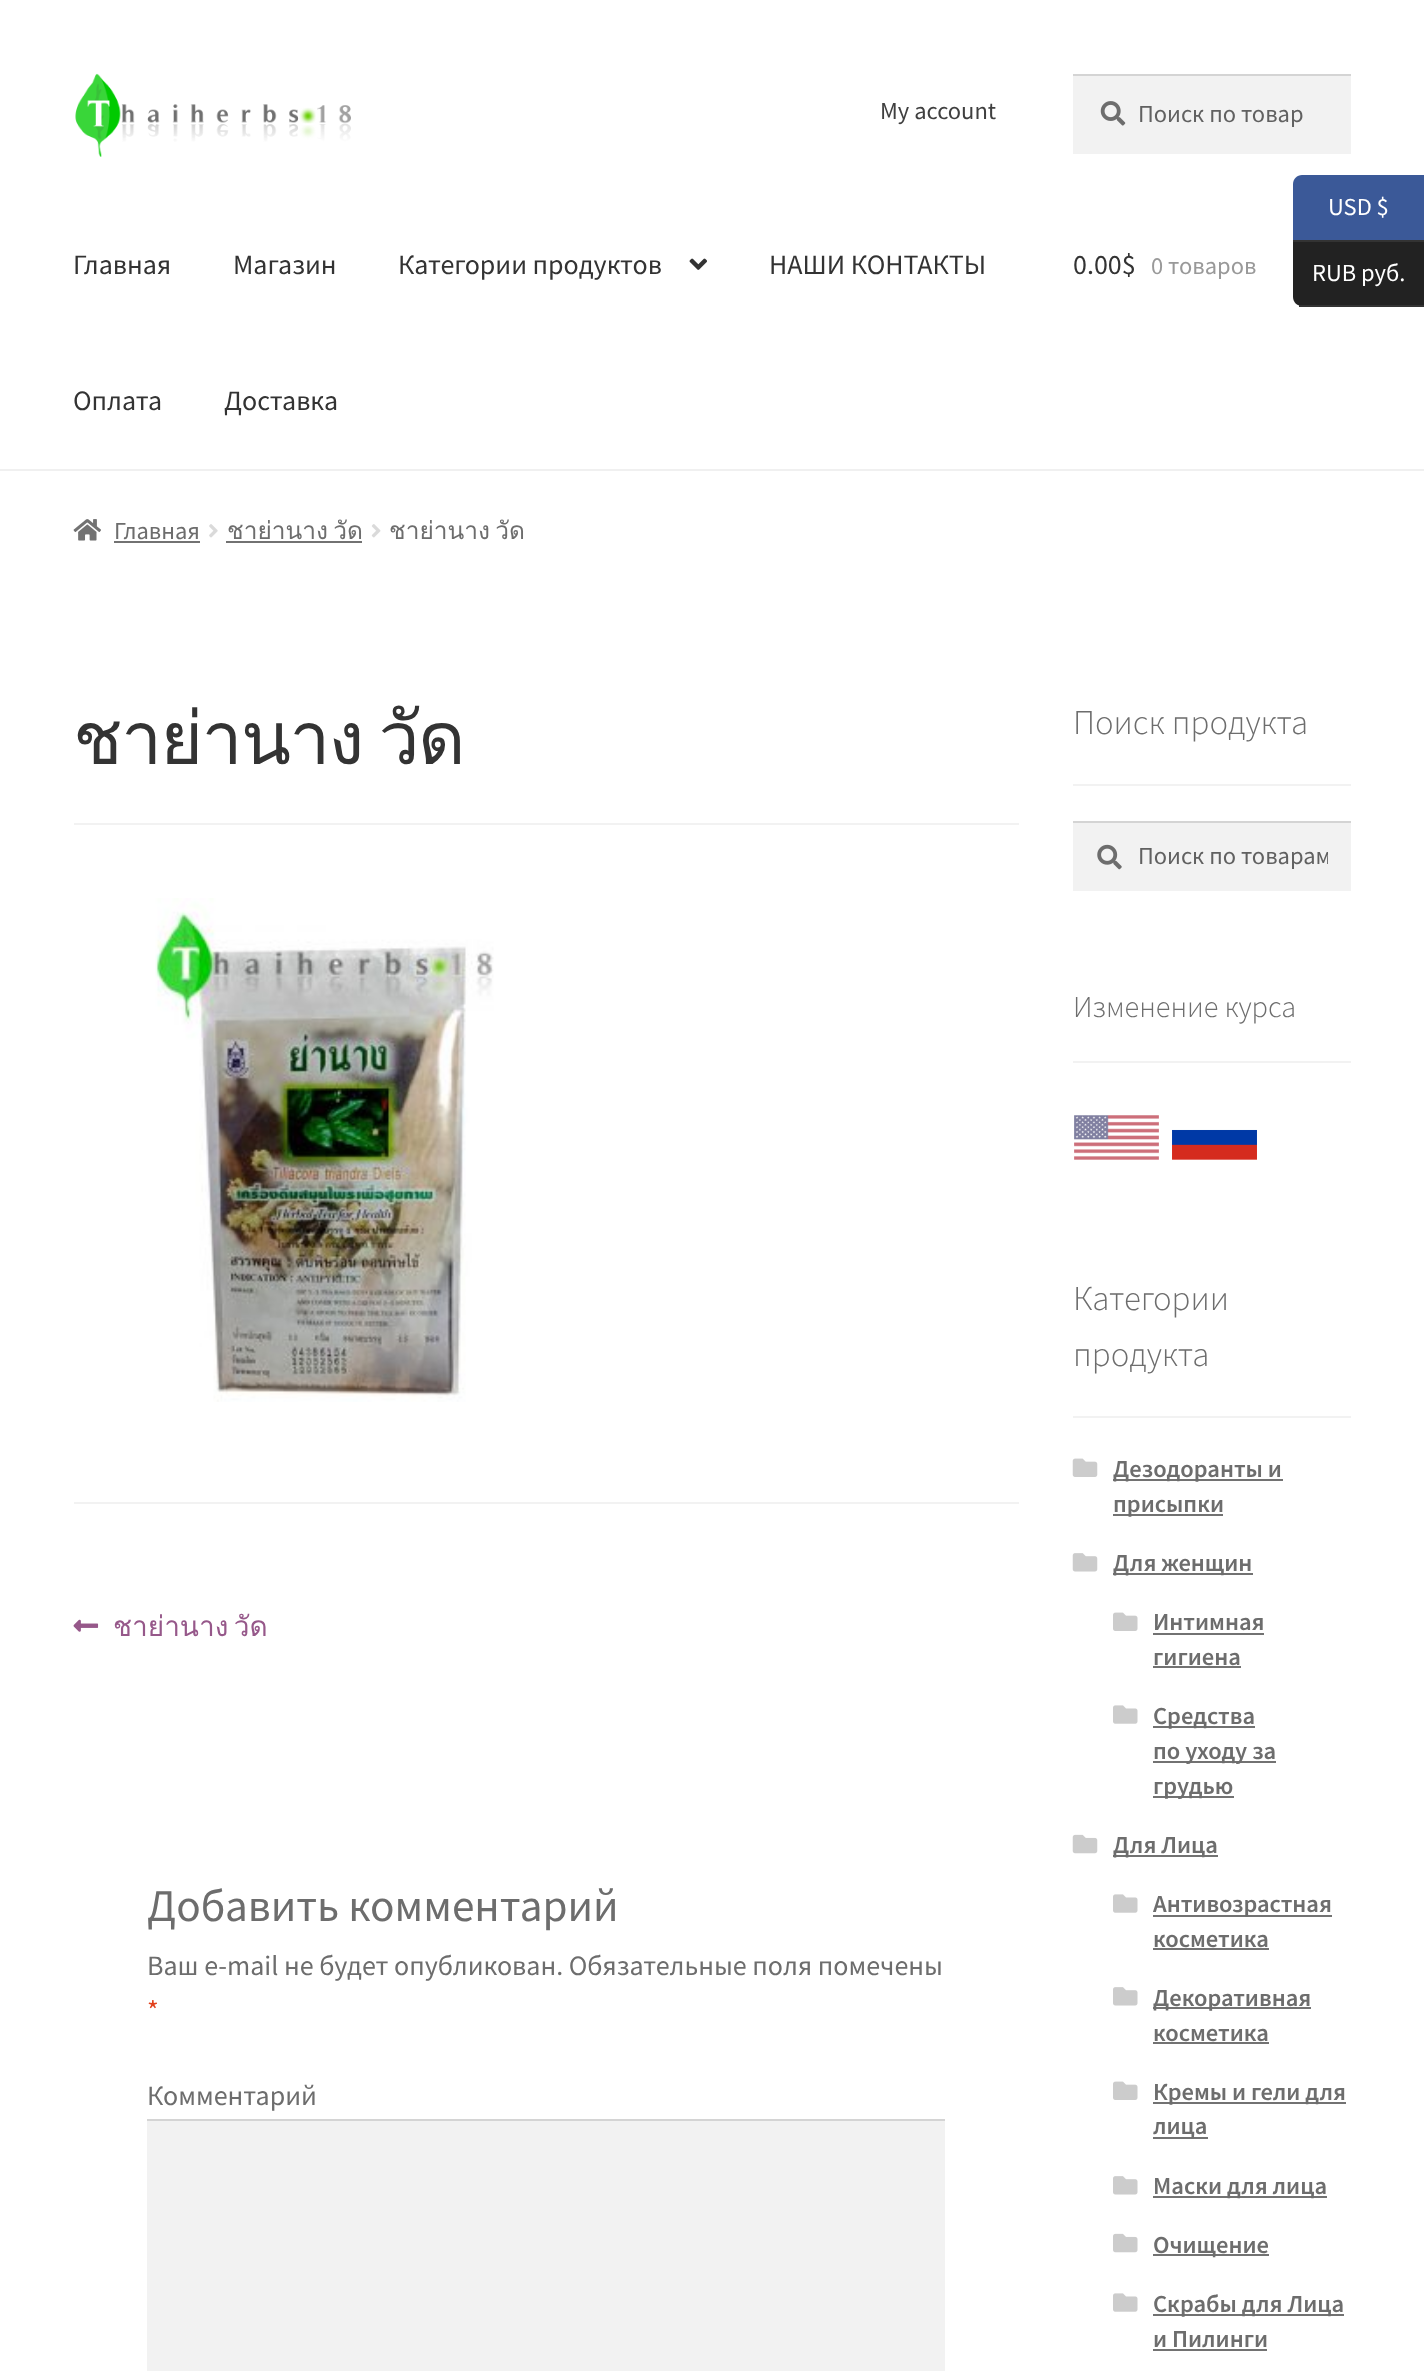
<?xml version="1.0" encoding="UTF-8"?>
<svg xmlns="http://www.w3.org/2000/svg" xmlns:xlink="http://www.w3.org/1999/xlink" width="1424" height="2371">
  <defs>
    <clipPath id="clip1"><rect x="1138" y="840" width="190" height="32" /></clipPath>
  </defs>
  <rect width="100%" height="100%" fill="#ffffff" />
  <rect y="469" width="1424" height="2" fill="#f0f0f0" />
  <image x="75" y="73" width="276" height="84" xlink:href="image1.png" />
  <rect x="1073" y="76" width="278" height="78" fill="#f2f2f2" />
  <image x="1100" y="101" width="26" height="25" xlink:href="image2.png" />
  <rect x="1073" y="74" width="278" height="2" fill="#d4d4d4" />
  <image x="689" y="258" width="18" height="12" xlink:href="image3.png" />
  <image x="73" y="519" width="28" height="22" xlink:href="image4.png" />
  <rect x="114" y="541" width="86" height="2" fill="#727272" />
  <image x="209" y="524" width="9" height="14" xlink:href="image5.png" />
  <rect x="226" y="541" width="136" height="2" fill="#727272" />
  <image x="371" y="524" width="10" height="14" xlink:href="image6.png" />
  <rect x="74" y="823" width="945" height="2" fill="#f2f2f2" />
  <image x="155" y="898" width="339" height="504" xlink:href="image7.png" />
  <rect x="74" y="1502" width="945" height="2" fill="#f2f2f2" />
  <image x="73" y="1619" width="26" height="13" xlink:href="image8.png" />
  <rect x="147" y="2121" width="798" height="250" fill="#f2f2f2" />
  <rect x="147" y="2119" width="798" height="2" fill="#d4d4d4" />
  <rect x="1073" y="784" width="278" height="2" fill="#f2f2f2" />
  <rect x="1073" y="823" width="278" height="68" fill="#f2f2f2" />
  <image x="1097" y="844" width="25" height="26" xlink:href="image9.png" />
  <rect x="1073" y="821" width="278" height="2" fill="#d4d4d4" />
  <rect x="1073" y="1061" width="278" height="2" fill="#f2f2f2" />
  <image x="1074" y="1115" width="85" height="45" xlink:href="image10.png" />
  <image x="1172" y="1129" width="85" height="31" xlink:href="image11.png" />
  <rect x="1073" y="1416" width="278" height="2" fill="#f2f2f2" />
  <image x="1072" y="1458" width="26" height="19" xlink:href="image12.png" />
  <rect x="1113" y="1479" width="170" height="2" fill="#727272" />
  <rect x="1113" y="1514" width="110" height="2" fill="#727272" />
  <image x="1072" y="1553" width="26" height="19" xlink:href="image13.png" />
  <rect x="1113" y="1573" width="140" height="2" fill="#727272" />
  <image x="1113" y="1612" width="25" height="19" xlink:href="image14.png" />
  <rect x="1153" y="1633" width="111" height="2" fill="#727272" />
  <rect x="1153" y="1666" width="88" height="2" fill="#727272" />
  <image x="1113" y="1705" width="25" height="19" xlink:href="image15.png" />
  <rect x="1153" y="1726" width="102" height="2" fill="#727272" />
  <rect x="1153" y="1761" width="123" height="2" fill="#727272" />
  <rect x="1153" y="1796" width="81" height="2" fill="#727272" />
  <image x="1072" y="1834" width="26" height="20" xlink:href="image16.png" />
  <rect x="1113" y="1855" width="105" height="2" fill="#727272" />
  <image x="1113" y="1894" width="25" height="19" xlink:href="image15.png" />
  <rect x="1153" y="1915" width="179" height="2" fill="#727272" />
  <rect x="1153" y="1948" width="116" height="2" fill="#727272" />
  <image x="1113" y="1987" width="25" height="19" xlink:href="image17.png" />
  <rect x="1153" y="2007" width="158" height="2" fill="#727272" />
  <rect x="1153" y="2042" width="116" height="2" fill="#727272" />
  <image x="1113" y="2081" width="25" height="19" xlink:href="image14.png" />
  <rect x="1153" y="2102" width="193" height="2" fill="#727272" />
  <rect x="1153" y="2137" width="55" height="2" fill="#727272" />
  <image x="1113" y="2176" width="25" height="19" xlink:href="image17.png" />
  <rect x="1153" y="2196" width="174" height="2" fill="#727272" />
  <image x="1113" y="2233" width="25" height="20" xlink:href="image18.png" />
  <rect x="1153" y="2254" width="116" height="2" fill="#727272" />
  <image x="1113" y="2293" width="25" height="19" xlink:href="image15.png" />
  <rect x="1153" y="2314" width="191" height="2" fill="#727272" />
  <rect x="1153" y="2349" width="114" height="2" fill="#727272" />
  <path d="M 1302 175 h 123 v 67 h -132 v -58 c 0 -5 4 -9 9 -9 z" fill="#3b5998" />
  <rect x="1293" y="240" width="131" height="2" fill="#333333" />
  <path d="M 1293 242 h 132 v 64 h -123 c -5 0 -9 -4 -9 -9 z" fill="#222222" />
  <rect x="1299" y="305" width="125" height="2" fill="#333333" />
  <text x="880" y="119" style="font-family: Source Sans Pro; font-size: 24.5px; fill: #404040">My account</text>
  <text x="1138" y="122" style="font-family: Source Sans Pro; font-size: 24.5px; fill: #616161">Поиск по товар</text>
  <text x="73" y="274" style="font-family: Source Sans Pro; font-size: 28px; fill: #333333">Главная</text>
  <text x="233" y="274" style="font-family: Source Sans Pro; font-size: 28px; fill: #333333">Магазин</text>
  <text x="398" y="274" style="font-family: Source Sans Pro; font-size: 28px; fill: #333333">Категории продуктов</text>
  <text x="769" y="274" style="font-family: Source Sans Pro; font-size: 28px; fill: #333333">НАШИ КОНТАКТЫ</text>
  <text x="73" y="410" style="font-family: Source Sans Pro; font-size: 28px; fill: #333333">Оплата</text>
  <text x="224" y="410" style="font-family: Source Sans Pro; font-size: 28px; fill: #333333">Доставка</text>
  <text x="1073" y="274" style="font-family: Source Sans Pro; font-size: 28px; fill: #333333">0.00$</text>
  <text x="1151" y="274" style="font-family: Source Sans Pro; font-size: 24.5px; fill: #999999">0 товаров</text>
  <text x="114" y="539" style="font-family: Source Sans Pro; font-size: 24.5px; fill: #6d6d6d">Главная</text>
  <text x="227" y="539" word-spacing="-3" style="font-family: Loma; font-size: 24.5px; fill: #6d6d6d">ชาย่านาง วัด</text>
  <text x="389" y="539" word-spacing="-3" style="font-family: Loma; font-size: 24.5px; fill: #6d6d6d">ชาย่านาง วัด</text>
  <text x="73" y="764" word-spacing="-7" style="font-family: Loma; font-size: 73.25px; letter-spacing: -1.75px; fill: #333333">ชาย่านาง วัด</text>
  <text x="113" y="1636" word-spacing="-4" style="font-family: Loma; font-size: 28px; fill: #96588a">ชาย่านาง วัด</text>
  <text x="147" y="1921" style="font-family: Source Sans Pro; font-size: 45.25px; fill: #6d6d6d">Добавить комментарий</text>
  <text x="147" y="1975" style="font-family: Source Sans Pro; font-size: 28px; fill: #6d6d6d">Ваш e-mail не будет опубликован. Обязательные поля помечены</text>
  <text x="147" y="2020" style="font-family: Source Sans Pro; font-size: 28px; fill: #e2401c">*</text>
  <text x="147" y="2105" style="font-family: Source Sans Pro; font-size: 28px; fill: #6d6d6d">Комментарий</text>
  <text x="1073" y="734" style="font-family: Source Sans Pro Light; font-size: 34.75px; font-weight: 300; fill: #6d6d6d">Поиск продукта</text>
  <g clip-path="url(#clip1)">
    <text x="1138" y="864" style="font-family: Source Sans Pro; font-size: 24.5px; fill: #616161">Поиск по товарам</text>
  </g>
  <text x="1073" y="1017" style="font-family: Source Sans Pro Light; font-size: 30.25px; font-weight: 300; fill: #6d6d6d">Изменение курса</text>
  <text x="1073" y="1310" style="font-family: Source Sans Pro Light; font-size: 34.75px; font-weight: 300; fill: #6d6d6d">Категории</text>
  <text x="1073" y="1366" style="font-family: Source Sans Pro Light; font-size: 34.75px; font-weight: 300; fill: #6d6d6d">продукта</text>
  <text x="1113" y="1477" style="font-family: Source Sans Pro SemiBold; font-size: 24.5px; font-weight: 600; fill: #6d6d6d">Дезодоранты и</text>
  <text x="1113" y="1512" style="font-family: Source Sans Pro SemiBold; font-size: 24.5px; font-weight: 600; fill: #6d6d6d">присыпки</text>
  <text x="1113" y="1571" style="font-family: Source Sans Pro SemiBold; font-size: 24.5px; font-weight: 600; fill: #6d6d6d">Для женщин</text>
  <text x="1153" y="1630" style="font-family: Source Sans Pro SemiBold; font-size: 24.5px; font-weight: 600; fill: #6d6d6d">Интимная</text>
  <text x="1153" y="1665" style="font-family: Source Sans Pro SemiBold; font-size: 24.5px; font-weight: 600; fill: #6d6d6d">гигиена</text>
  <text x="1153" y="1724" style="font-family: Source Sans Pro SemiBold; font-size: 24.5px; font-weight: 600; fill: #6d6d6d">Средства</text>
  <text x="1153" y="1759" style="font-family: Source Sans Pro SemiBold; font-size: 24.5px; font-weight: 600; fill: #6d6d6d">по уходу за</text>
  <text x="1153" y="1794" style="font-family: Source Sans Pro SemiBold; font-size: 24.5px; font-weight: 600; fill: #6d6d6d">грудью</text>
  <text x="1113" y="1853" style="font-family: Source Sans Pro SemiBold; font-size: 24.5px; font-weight: 600; fill: #6d6d6d">Для Лица</text>
  <text x="1153" y="1912" style="font-family: Source Sans Pro SemiBold; font-size: 24.5px; font-weight: 600; fill: #6d6d6d">Антивозрастная</text>
  <text x="1153" y="1947" style="font-family: Source Sans Pro SemiBold; font-size: 24.5px; font-weight: 600; fill: #6d6d6d">косметика</text>
  <text x="1153" y="2006" style="font-family: Source Sans Pro SemiBold; font-size: 24.5px; font-weight: 600; fill: #6d6d6d">Декоративная</text>
  <text x="1153" y="2041" style="font-family: Source Sans Pro SemiBold; font-size: 24.5px; font-weight: 600; fill: #6d6d6d">косметика</text>
  <text x="1153" y="2100" style="font-family: Source Sans Pro SemiBold; font-size: 24.5px; font-weight: 600; fill: #6d6d6d">Кремы и гели для</text>
  <text x="1153" y="2134" style="font-family: Source Sans Pro SemiBold; font-size: 24.5px; font-weight: 600; fill: #6d6d6d">лица</text>
  <text x="1153" y="2194" style="font-family: Source Sans Pro SemiBold; font-size: 24.5px; font-weight: 600; fill: #6d6d6d">Маски для лица</text>
  <text x="1153" y="2253" style="font-family: Source Sans Pro SemiBold; font-size: 24.5px; font-weight: 600; fill: #6d6d6d">Очищение</text>
  <text x="1153" y="2312" style="font-family: Source Sans Pro SemiBold; font-size: 24.5px; font-weight: 600; fill: #6d6d6d">Скрабы для Лица</text>
  <text x="1153" y="2347" style="font-family: Source Sans Pro SemiBold; font-size: 24.5px; font-weight: 600; fill: #6d6d6d">и Пилинги</text>
  <text x="1328" y="215" style="font-family: Source Sans Pro; font-size: 24.5px; fill: #ffffff">USD $</text>
  <text x="1312" y="281" style="font-family: Source Sans Pro; font-size: 24.5px; fill: #ffffff">RUB руб.</text>
</svg>
